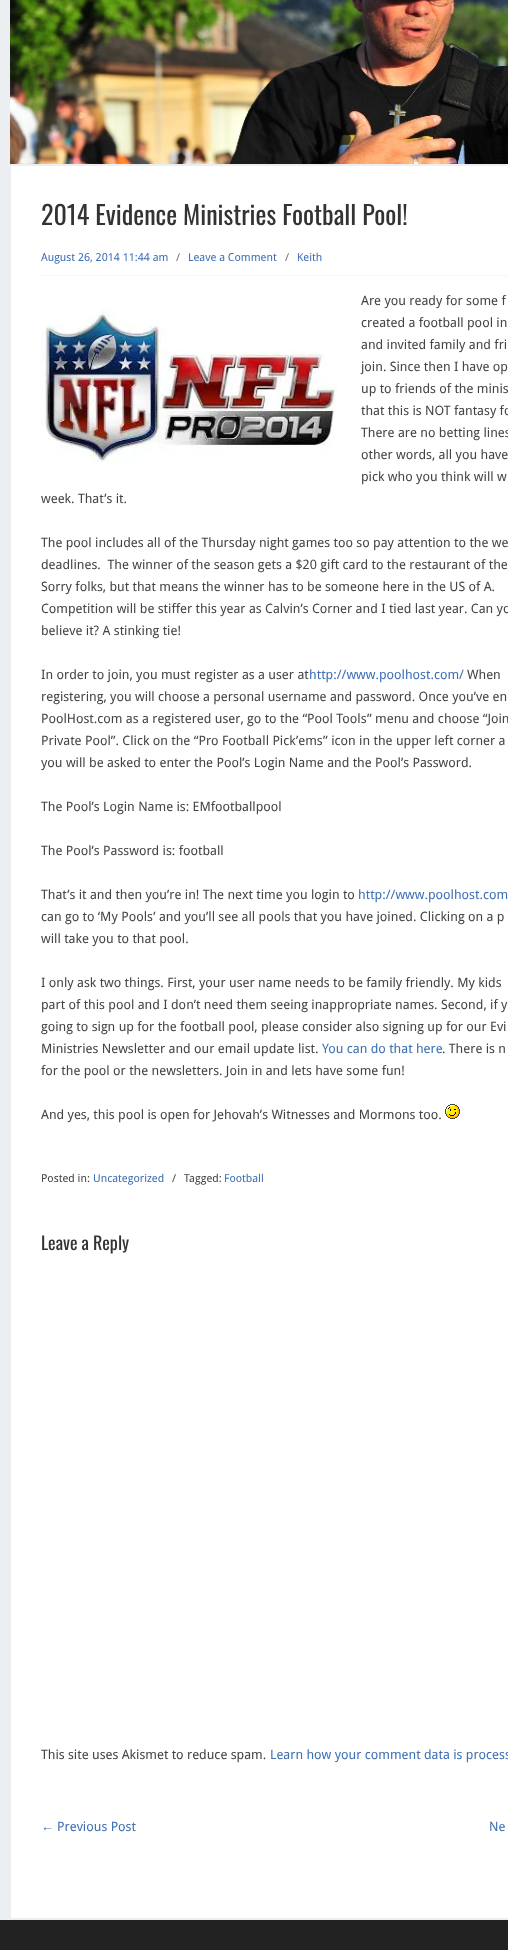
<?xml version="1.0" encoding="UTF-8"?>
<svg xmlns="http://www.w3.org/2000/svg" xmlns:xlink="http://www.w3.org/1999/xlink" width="508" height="1950">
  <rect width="100%" height="100%" fill="#eceff2" />
  <image x="10" y="0" width="498" height="164" xlink:href="image1.png" />
  <rect x="10.5" y="165.5" width="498" height="1753" fill="#ffffff" stroke="#eeeeee" />
  <path d="M 41 275.5 h 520" fill="none" stroke="#eeeeee" stroke-dasharray="1 1" />
  <image x="41" y="310" width="296" height="152" xlink:href="image2.png" />
  <image x="445" y="1104" width="15" height="15" xlink:href="image3.png" />
  <rect y="1920" width="508" height="30" fill="#222222" />
  <text x="41" y="225" style="font-family: Oswald; font-size: 26px; fill: #333333">2014 Evidence Ministries Football Pool!</text>
  <text x="41" y="261" style="font-family: Droid Sans; font-size: 11px; fill: #3d6fb4">August 26, 2014 11:44 am</text>
  <text x="176" y="261" style="font-family: Droid Sans; font-size: 11px; fill: #707070">/</text>
  <text x="188" y="261" style="font-family: Droid Sans; font-size: 11px; fill: #3d6fb4">Leave a Comment</text>
  <text x="285" y="261" style="font-family: Droid Sans; font-size: 11px; fill: #707070">/</text>
  <text x="297" y="261" style="font-family: Droid Sans; font-size: 11px; fill: #3d6fb4">Keith</text>
  <text x="361" y="305" style="font-family: Droid Sans; font-size: 13px; fill: #444444">Are you ready for some f</text>
  <text x="361" y="327" style="font-family: Droid Sans; font-size: 13px; fill: #444444">created a football pool in</text>
  <text x="361" y="349" style="font-family: Droid Sans; font-size: 13px; fill: #444444">and invited family and fri</text>
  <text x="361" y="371" style="font-family: Droid Sans; font-size: 13px; fill: #444444">join. Since then I have op</text>
  <text x="361" y="393" style="font-family: Droid Sans; font-size: 13px; fill: #444444">up to friends of the minis</text>
  <text x="361" y="415" style="font-family: Droid Sans; font-size: 13px; fill: #444444">that this is NOT fantasy fo</text>
  <text x="361" y="437" style="font-family: Droid Sans; font-size: 13px; fill: #444444">There are no betting lines</text>
  <text x="361" y="459" style="font-family: Droid Sans; font-size: 13px; fill: #444444">other words, all you have</text>
  <text x="361" y="481" style="font-family: Droid Sans; font-size: 13px; fill: #444444">pick who you think will w</text>
  <text x="41" y="503" style="font-family: Droid Sans; font-size: 13px; fill: #444444">week. That’s it.</text>
  <text x="41" y="547" style="font-family: Droid Sans; font-size: 13px; fill: #444444">The pool includes all of the Thursday night games too so pay attention to the we</text>
  <text x="41" y="569" style="font-family: Droid Sans; font-size: 13px; fill: #444444" xml:space="preserve">deadlines.  The winner of the season gets a $20 gift card to the restaurant of the</text>
  <text x="41" y="591" style="font-family: Droid Sans; font-size: 13px; fill: #444444">Sorry folks, but that means the winner has to be someone here in the US of A.</text>
  <text x="41" y="613" style="font-family: Droid Sans; font-size: 13px; fill: #444444">Competition will be stiffer this year as Calvin’s Corner and I tied last year. Can yo</text>
  <text x="41" y="635" style="font-family: Droid Sans; font-size: 13px; fill: #444444">believe it? A stinking tie!</text>
  <text x="41" y="679" style="font-family: Droid Sans; font-size: 13px; fill: #444444">In order to join, you must register as a user at</text>
  <text x="309" y="679" style="font-family: Droid Sans; font-size: 13px; fill: #3d6fb4">http://www.poolhost.com/</text>
  <text x="467" y="679" style="font-family: Droid Sans; font-size: 13px; fill: #444444">When</text>
  <text x="41" y="701" style="font-family: Droid Sans; font-size: 13px; fill: #444444">registering, you will choose a personal username and password. Once you’ve en</text>
  <text x="41" y="723" style="font-family: Droid Sans; font-size: 13px; fill: #444444">PoolHost.com as a registered user, go to the “Pool Tools” menu and choose “Join</text>
  <text x="41" y="745" style="font-family: Droid Sans; font-size: 13px; fill: #444444">Private Pool”. Click on the “Pro Football Pick’ems” icon in the upper left corner a</text>
  <text x="41" y="767" style="font-family: Droid Sans; font-size: 13px; fill: #444444">you will be asked to enter the Pool’s Login Name and the Pool’s Password.</text>
  <text x="41" y="811" style="font-family: Droid Sans; font-size: 13px; fill: #444444">The Pool’s Login Name is: EMfootballpool</text>
  <text x="41" y="855" style="font-family: Droid Sans; font-size: 13px; fill: #444444">The Pool’s Password is: football</text>
  <text x="41" y="899" style="font-family: Droid Sans; font-size: 13px; fill: #444444">That’s it and then you’re in! The next time you login to</text>
  <text x="358" y="899" style="font-family: Droid Sans; font-size: 13px; fill: #3d6fb4">http://www.poolhost.com</text>
  <text x="41" y="921" style="font-family: Droid Sans; font-size: 13px; fill: #444444">can go to ‘My Pools’ and you’ll see all pools that you have joined. Clicking on a p</text>
  <text x="41" y="943" style="font-family: Droid Sans; font-size: 13px; fill: #444444">will take you to that pool.</text>
  <text x="41" y="987" style="font-family: Droid Sans; font-size: 13px; fill: #444444">I only ask two things. First, your user name needs to be family friendly. My kids</text>
  <text x="41" y="1009" style="font-family: Droid Sans; font-size: 13px; fill: #444444">part of this pool and I don’t need them seeing inappropriate names. Second, if y</text>
  <text x="41" y="1031" style="font-family: Droid Sans; font-size: 13px; fill: #444444">going to sign up for the football pool, please consider also signing up for our Evi</text>
  <text x="41" y="1053" style="font-family: Droid Sans; font-size: 13px; fill: #444444">Ministries Newsletter and our email update list.</text>
  <text x="322" y="1053" style="font-family: Droid Sans; font-size: 13px; fill: #3d6fb4">You can do that here</text>
  <text x="442" y="1053" style="font-family: Droid Sans; font-size: 13px; fill: #444444">. There is n</text>
  <text x="41" y="1075" style="font-family: Droid Sans; font-size: 13px; fill: #444444">for the pool or the newsletters. Join in and lets have some fun!</text>
  <text x="41" y="1119" style="font-family: Droid Sans; font-size: 13px; fill: #444444">And yes, this pool is open for Jehovah’s Witnesses and Mormons too.</text>
  <text x="41" y="1182" style="font-family: Droid Sans; font-size: 11px; fill: #444444">Posted in:</text>
  <text x="93" y="1182" style="font-family: Droid Sans; font-size: 11px; fill: #3d6fb4">Uncategorized</text>
  <text x="172" y="1182" style="font-family: Droid Sans; font-size: 11px; fill: #444444">/</text>
  <text x="184" y="1182" style="font-family: Droid Sans; font-size: 11px; fill: #444444">Tagged:</text>
  <text x="224" y="1182" style="font-family: Droid Sans; font-size: 11px; fill: #3d6fb4">Football</text>
  <text x="41" y="1250" style="font-family: Oswald; font-size: 18px; fill: #333333">Leave a Reply</text>
  <text x="41" y="1759" style="font-family: Droid Sans; font-size: 13px; fill: #444444">This site uses Akismet to reduce spam.</text>
  <text x="270" y="1759" style="font-family: Droid Sans; font-size: 13px; fill: #3d6fb4">Learn how your comment data is process</text>
  <text x="41" y="1831" style="font-family: Liberation Sans; font-size: 13px; fill: #3d6fb4">←</text>
  <text x="57" y="1831" style="font-family: Droid Sans; font-size: 13px; fill: #3d6fb4">Previous Post</text>
  <text x="489" y="1831" style="font-family: Droid Sans; font-size: 13px; fill: #3d6fb4">Ne</text>
</svg>
